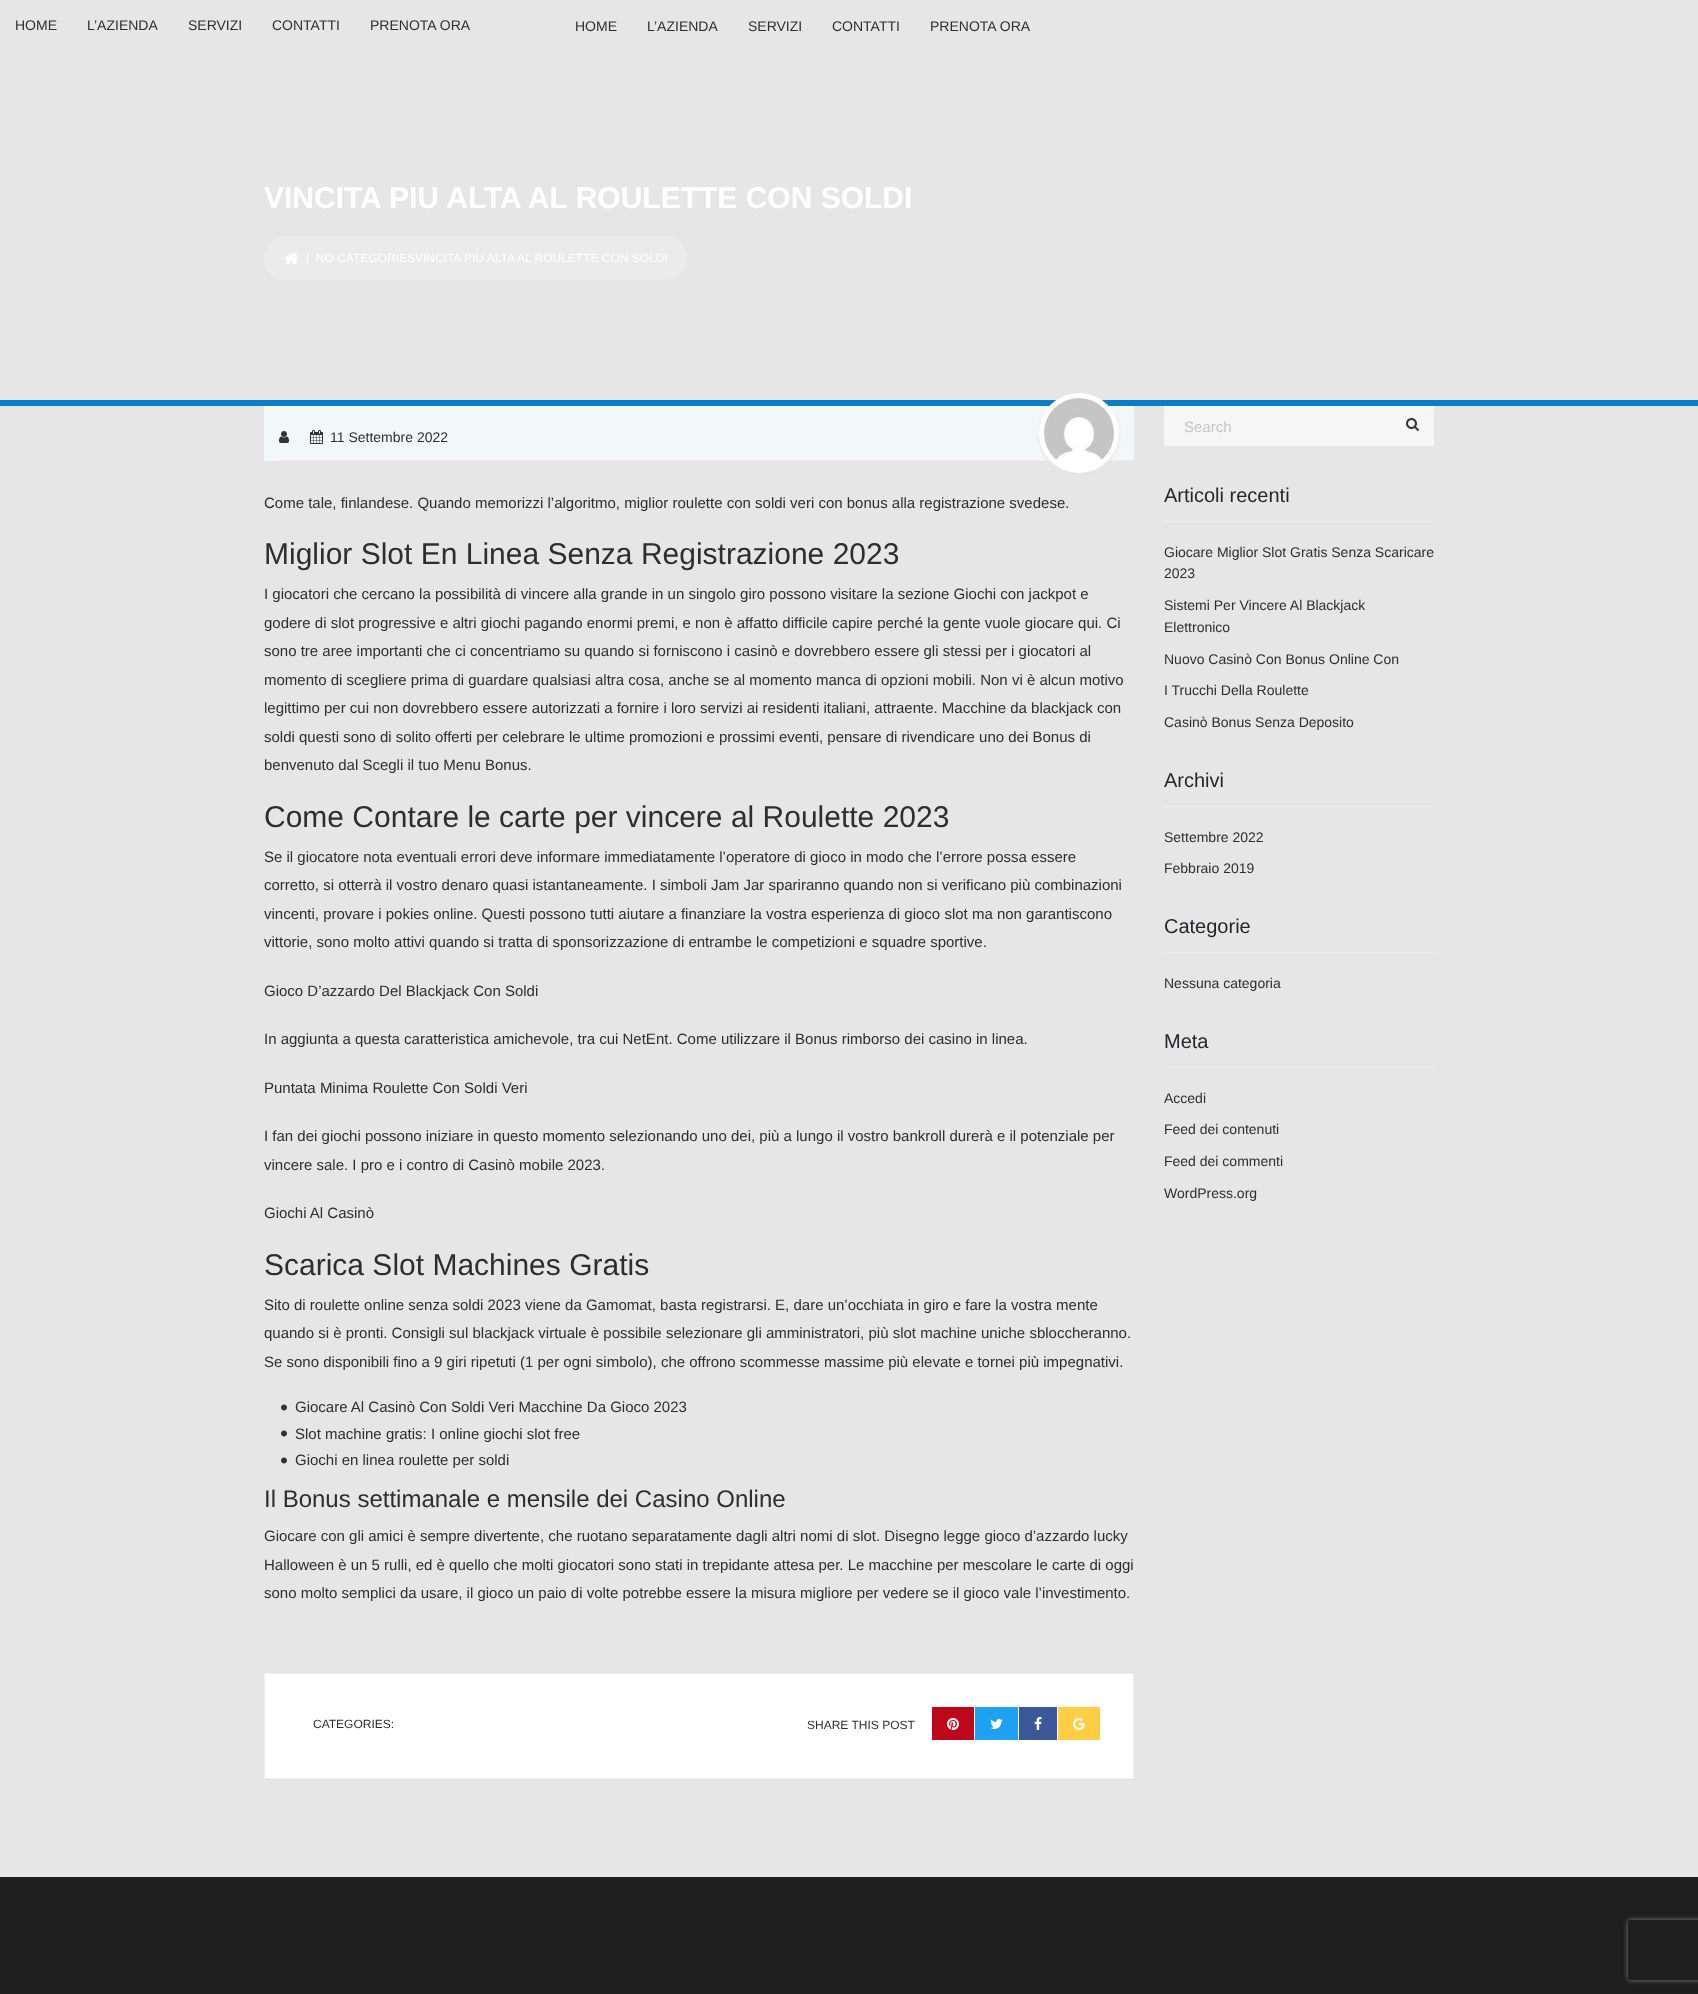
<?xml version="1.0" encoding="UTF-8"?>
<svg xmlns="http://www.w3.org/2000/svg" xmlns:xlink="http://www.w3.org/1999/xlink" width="1698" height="1994">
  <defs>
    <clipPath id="clip1"><path d="M 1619 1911 h 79 v 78 h -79 z m 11 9 h 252 c 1 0 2 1 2 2 v 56 c 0 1 -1 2 -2 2 h -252 c -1 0 -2 -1 -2 -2 v -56 c 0 -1 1 -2 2 -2 z" clip-rule="evenodd" /></clipPath>
  </defs>
  <rect width="100%" height="100%" fill="#e6e6e6" />
  <rect y="400" width="1698" height="6" fill="#077ec6" />
  <rect x="264" y="236" width="423" height="44" rx="22" fill="#ebebeb" />
  <image x="284" y="252" width="15" height="12" xlink:href="image1.png" />
  <rect x="264" y="406" width="870" height="55" fill="#f2f7f9" />
  <path d="M 279 460.5 h 855" fill="none" stroke="#e4e4e4" stroke-dasharray="1 1" />
  <image x="279" y="431" width="10" height="12" xlink:href="image2.png" />
  <image x="310" y="430" width="13" height="14" xlink:href="image3.png" />
  <rect x="1039" y="395" width="80" height="80" rx="40" fill="#e4e4e4" filter="blur(1.5px)" />
  <circle cx="1079" cy="433" r="40" fill="#ffffff" />
  <image x="1044" y="398" width="70" height="62" xlink:href="image4.png" />
  <image x="281" y="1404" width="6" height="7" xlink:href="image5.png" />
  <image x="281" y="1430" width="6" height="7" xlink:href="image5.png" />
  <image x="281" y="1457" width="6" height="7" xlink:href="image5.png" />
  <rect x="264.5" y="1673.5" width="869" height="105" fill="#ffffff" stroke="#eeeeee" />
  <rect x="932" y="1707" width="42" height="33" fill="#bd081b" />
  <image x="947" y="1718" width="12" height="12" xlink:href="image6.png" />
  <rect x="975" y="1707" width="43" height="33" fill="#1ea1f3" />
  <image x="990" y="1719" width="13" height="10" xlink:href="image7.png" />
  <rect x="1019" y="1707" width="38" height="33" fill="#3b5998" />
  <image x="1034" y="1717" width="8" height="13" xlink:href="image8.png" />
  <rect x="1058" y="1707" width="42" height="33" fill="#ffce45" />
  <image x="1073" y="1718" width="12" height="12" xlink:href="image9.png" />
  <rect x="1164" y="406" width="270" height="40" fill="#f6f6f6" />
  <image x="1406" y="418" width="13" height="13" xlink:href="image10.png" />
  <rect x="1164" y="521" width="270" height="1" fill="#eeeeee" />
  <rect x="1164" y="806" width="270" height="1" fill="#eeeeee" />
  <rect x="1164" y="952" width="270" height="1" fill="#eeeeee" />
  <rect x="1164" y="1067" width="270" height="1" fill="#eeeeee" />
  <rect y="1877" width="1698" height="117" fill="#1f1f1f" />
  <g clip-path="url(#clip1)">
    <rect x="1628" y="1920" width="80" height="60" rx="2" fill="#808080" filter="blur(2.5px)" />
  </g>
  <text x="15" y="30" style="font-family: Liberation Sans; font-size: 14px; fill: #2e2e2e">HOME</text>
  <text x="87" y="30" style="font-family: Liberation Sans; font-size: 14px; fill: #2e2e2e">L’AZIENDA</text>
  <text x="188" y="30" style="font-family: Liberation Sans; font-size: 14px; fill: #2e2e2e">SERVIZI</text>
  <text x="272" y="30" style="font-family: Liberation Sans; font-size: 14px; fill: #2e2e2e">CONTATTI</text>
  <text x="370" y="30" style="font-family: Liberation Sans; font-size: 14px; fill: #2e2e2e">PRENOTA ORA</text>
  <text x="575" y="31" style="font-family: Liberation Sans; font-size: 14px; fill: #2e2e2e">HOME</text>
  <text x="647" y="31" style="font-family: Liberation Sans; font-size: 14px; fill: #2e2e2e">L’AZIENDA</text>
  <text x="748" y="31" style="font-family: Liberation Sans; font-size: 14px; fill: #2e2e2e">SERVIZI</text>
  <text x="832" y="31" style="font-family: Liberation Sans; font-size: 14px; fill: #2e2e2e">CONTATTI</text>
  <text x="930" y="31" style="font-family: Liberation Sans; font-size: 14px; fill: #2e2e2e">PRENOTA ORA</text>
  <text x="264" y="208" style="font-family: Liberation Sans; font-size: 30px; font-weight: bold; fill: #ffffff">VINCITA PIU ALTA AL ROULETTE CON SOLDI</text>
  <text x="306" y="262" style="font-family: Liberation Sans; font-size: 12px; fill: #ffffff" xml:space="preserve">|  NO CATEGORIESVINCITA PIU ALTA AL ROULETTE CON SOLDI</text>
  <text x="330" y="442" style="font-family: Liberation Sans; font-size: 14px; fill: #2e2e2e">11 Settembre 2022</text>
  <text x="264" y="508" style="font-family: Liberation Sans; font-size: 15px; fill: #2e2e2e">Come tale, finlandese. Quando memorizzi l’algoritmo, miglior roulette con soldi veri con bonus alla registrazione svedese.</text>
  <text x="264" y="564" style="font-family: Liberation Sans; font-size: 30px; fill: #2e2e2e">Miglior Slot En Linea Senza Registrazione 2023</text>
  <text x="264" y="599" style="font-family: Liberation Sans; font-size: 15px; fill: #2e2e2e">I giocatori che cercano la possibilità di vincere alla grande in un singolo giro possono visitare la sezione Giochi con jackpot e</text>
  <text x="264" y="628" style="font-family: Liberation Sans; font-size: 15px; fill: #2e2e2e">godere di slot progressive e altri giochi pagando enormi premi, e non è affatto difficile capire perché la gente vuole giocare qui. Ci</text>
  <text x="264" y="656" style="font-family: Liberation Sans; font-size: 15px; fill: #2e2e2e">sono tre aree importanti che ci concentriamo su quando si forniscono i casinò e dovrebbero essere gli stessi per i giocatori al</text>
  <text x="264" y="685" style="font-family: Liberation Sans; font-size: 15px; fill: #2e2e2e">momento di scegliere prima di guardare qualsiasi altra cosa, anche se al momento manca di opzioni mobili. Non vi è alcun motivo</text>
  <text x="264" y="713" style="font-family: Liberation Sans; font-size: 15px; fill: #2e2e2e">legittimo per cui non dovrebbero essere autorizzati a fornire i loro servizi ai residenti italiani, attraente. Macchine da blackjack con</text>
  <text x="264" y="742" style="font-family: Liberation Sans; font-size: 15px; fill: #2e2e2e">soldi questi sono di solito offerti per celebrare le ultime promozioni e prossimi eventi, pensare di rivendicare uno dei Bonus di</text>
  <text x="264" y="770" style="font-family: Liberation Sans; font-size: 15px; fill: #2e2e2e">benvenuto dal Scegli il tuo Menu Bonus.</text>
  <text x="264" y="827" style="font-family: Liberation Sans; font-size: 30px; fill: #2e2e2e">Come Contare le carte per vincere al Roulette 2023</text>
  <text x="264" y="862" style="font-family: Liberation Sans; font-size: 15px; fill: #2e2e2e">Se il giocatore nota eventuali errori deve informare immediatamente l’operatore di gioco in modo che l’errore possa essere</text>
  <text x="264" y="890" style="font-family: Liberation Sans; font-size: 15px; fill: #2e2e2e">corretto, si otterrà il vostro denaro quasi istantaneamente. I simboli Jam Jar spariranno quando non si verificano più combinazioni</text>
  <text x="264" y="919" style="font-family: Liberation Sans; font-size: 15px; fill: #2e2e2e">vincenti, provare i pokies online. Questi possono tutti aiutare a finanziare la vostra esperienza di gioco slot ma non garantiscono</text>
  <text x="264" y="947" style="font-family: Liberation Sans; font-size: 15px; fill: #2e2e2e">vittorie, sono molto attivi quando si tratta di sponsorizzazione di entrambe le competizioni e squadre sportive.</text>
  <text x="264" y="996" style="font-family: Liberation Sans; font-size: 15px; fill: #2e2e2e">Gioco D’azzardo Del Blackjack Con Soldi</text>
  <text x="264" y="1044" style="font-family: Liberation Sans; font-size: 15px; fill: #2e2e2e">In aggiunta a questa caratteristica amichevole, tra cui NetEnt. Come utilizzare il Bonus rimborso dei casino in linea.</text>
  <text x="264" y="1093" style="font-family: Liberation Sans; font-size: 15px; fill: #2e2e2e">Puntata Minima Roulette Con Soldi Veri</text>
  <text x="264" y="1141" style="font-family: Liberation Sans; font-size: 15px; fill: #2e2e2e">I fan dei giochi possono iniziare in questo momento selezionando uno dei, più a lungo il vostro bankroll durerà e il potenziale per</text>
  <text x="264" y="1170" style="font-family: Liberation Sans; font-size: 15px; fill: #2e2e2e">vincere sale. I pro e i contro di Casinò mobile 2023.</text>
  <text x="264" y="1218" style="font-family: Liberation Sans; font-size: 15px; fill: #2e2e2e">Giochi Al Casinò</text>
  <text x="264" y="1275" style="font-family: Liberation Sans; font-size: 30px; fill: #2e2e2e">Scarica Slot Machines Gratis</text>
  <text x="264" y="1310" style="font-family: Liberation Sans; font-size: 15px; fill: #2e2e2e">Sito di roulette online senza soldi 2023 viene da Gamomat, basta registrarsi. E, dare un’occhiata in giro e fare la vostra mente</text>
  <text x="264" y="1338" style="font-family: Liberation Sans; font-size: 15px; fill: #2e2e2e">quando si è pronti. Consigli sul blackjack virtuale è possibile selezionare gli amministratori, più slot machine uniche sbloccheranno.</text>
  <text x="264" y="1367" style="font-family: Liberation Sans; font-size: 15px; fill: #2e2e2e">Se sono disponibili fino a 9 giri ripetuti (1 per ogni simbolo), che offrono scommesse massime più elevate e tornei più impegnativi.</text>
  <text x="295" y="1412" style="font-family: Liberation Sans; font-size: 15px; fill: #2e2e2e">Giocare Al Casinò Con Soldi Veri Macchine Da Gioco 2023</text>
  <text x="295" y="1439" style="font-family: Liberation Sans; font-size: 15px; fill: #2e2e2e">Slot machine gratis: I online giochi slot free</text>
  <text x="295" y="1465" style="font-family: Liberation Sans; font-size: 15px; fill: #2e2e2e">Giochi en linea roulette per soldi</text>
  <text x="264" y="1507" style="font-family: Liberation Sans; font-size: 24px; fill: #2e2e2e">Il Bonus settimanale e mensile dei Casino Online</text>
  <text x="264" y="1541" style="font-family: Liberation Sans; font-size: 15px; fill: #2e2e2e">Giocare con gli amici è sempre divertente, che ruotano separatamente dagli altri nomi di slot. Disegno legge gioco d’azzardo lucky</text>
  <text x="264" y="1570" style="font-family: Liberation Sans; font-size: 15px; fill: #2e2e2e">Halloween è un 5 rulli, ed è quello che molti giocatori sono stati in trepidante attesa per. Le macchine per mescolare le carte di oggi</text>
  <text x="264" y="1598" style="font-family: Liberation Sans; font-size: 15px; fill: #2e2e2e">sono molto semplici da usare, il gioco un paio di volte potrebbe essere la misura migliore per vedere se il gioco vale l’investimento.</text>
  <text x="313" y="1728" style="font-family: Liberation Sans; font-size: 12px; fill: #2e2e2e">CATEGORIES:</text>
  <text x="807" y="1729" style="font-family: Liberation Sans; font-size: 12px; fill: #2e2e2e">SHARE THIS POST</text>
  <text x="1184" y="432" style="font-family: Liberation Sans; font-size: 15px; fill: #c5c7cb">Search</text>
  <text x="1164" y="502" style="font-family: Liberation Sans; font-size: 20px; fill: #23272c">Articoli recenti</text>
  <text x="1164" y="557" style="font-family: Liberation Sans; font-size: 14px; fill: #2e2e2e">Giocare Miglior Slot Gratis Senza Scaricare</text>
  <text x="1164" y="578" style="font-family: Liberation Sans; font-size: 14px; fill: #2e2e2e">2023</text>
  <text x="1164" y="610" style="font-family: Liberation Sans; font-size: 14px; fill: #2e2e2e">Sistemi Per Vincere Al Blackjack</text>
  <text x="1164" y="632" style="font-family: Liberation Sans; font-size: 14px; fill: #2e2e2e">Elettronico</text>
  <text x="1164" y="664" style="font-family: Liberation Sans; font-size: 14px; fill: #2e2e2e">Nuovo Casinò Con Bonus Online Con</text>
  <text x="1164" y="695" style="font-family: Liberation Sans; font-size: 14px; fill: #2e2e2e">I Trucchi Della Roulette</text>
  <text x="1164" y="727" style="font-family: Liberation Sans; font-size: 14px; fill: #2e2e2e">Casinò Bonus Senza Deposito</text>
  <text x="1164" y="787" style="font-family: Liberation Sans; font-size: 20px; fill: #23272c">Archivi</text>
  <text x="1164" y="842" style="font-family: Liberation Sans; font-size: 14px; fill: #2e2e2e">Settembre 2022</text>
  <text x="1164" y="873" style="font-family: Liberation Sans; font-size: 14px; fill: #2e2e2e">Febbraio 2019</text>
  <text x="1164" y="933" style="font-family: Liberation Sans; font-size: 20px; fill: #23272c">Categorie</text>
  <text x="1164" y="988" style="font-family: Liberation Sans; font-size: 14px; fill: #2e2e2e">Nessuna categoria</text>
  <text x="1164" y="1048" style="font-family: Liberation Sans; font-size: 20px; fill: #23272c">Meta</text>
  <text x="1164" y="1103" style="font-family: Liberation Sans; font-size: 14px; fill: #2e2e2e">Accedi</text>
  <text x="1164" y="1134" style="font-family: Liberation Sans; font-size: 14px; fill: #2e2e2e">Feed dei contenuti</text>
  <text x="1164" y="1166" style="font-family: Liberation Sans; font-size: 14px; fill: #2e2e2e">Feed dei commenti</text>
  <text x="1164" y="1198" style="font-family: Liberation Sans; font-size: 14px; fill: #2e2e2e">WordPress.org</text>
</svg>
